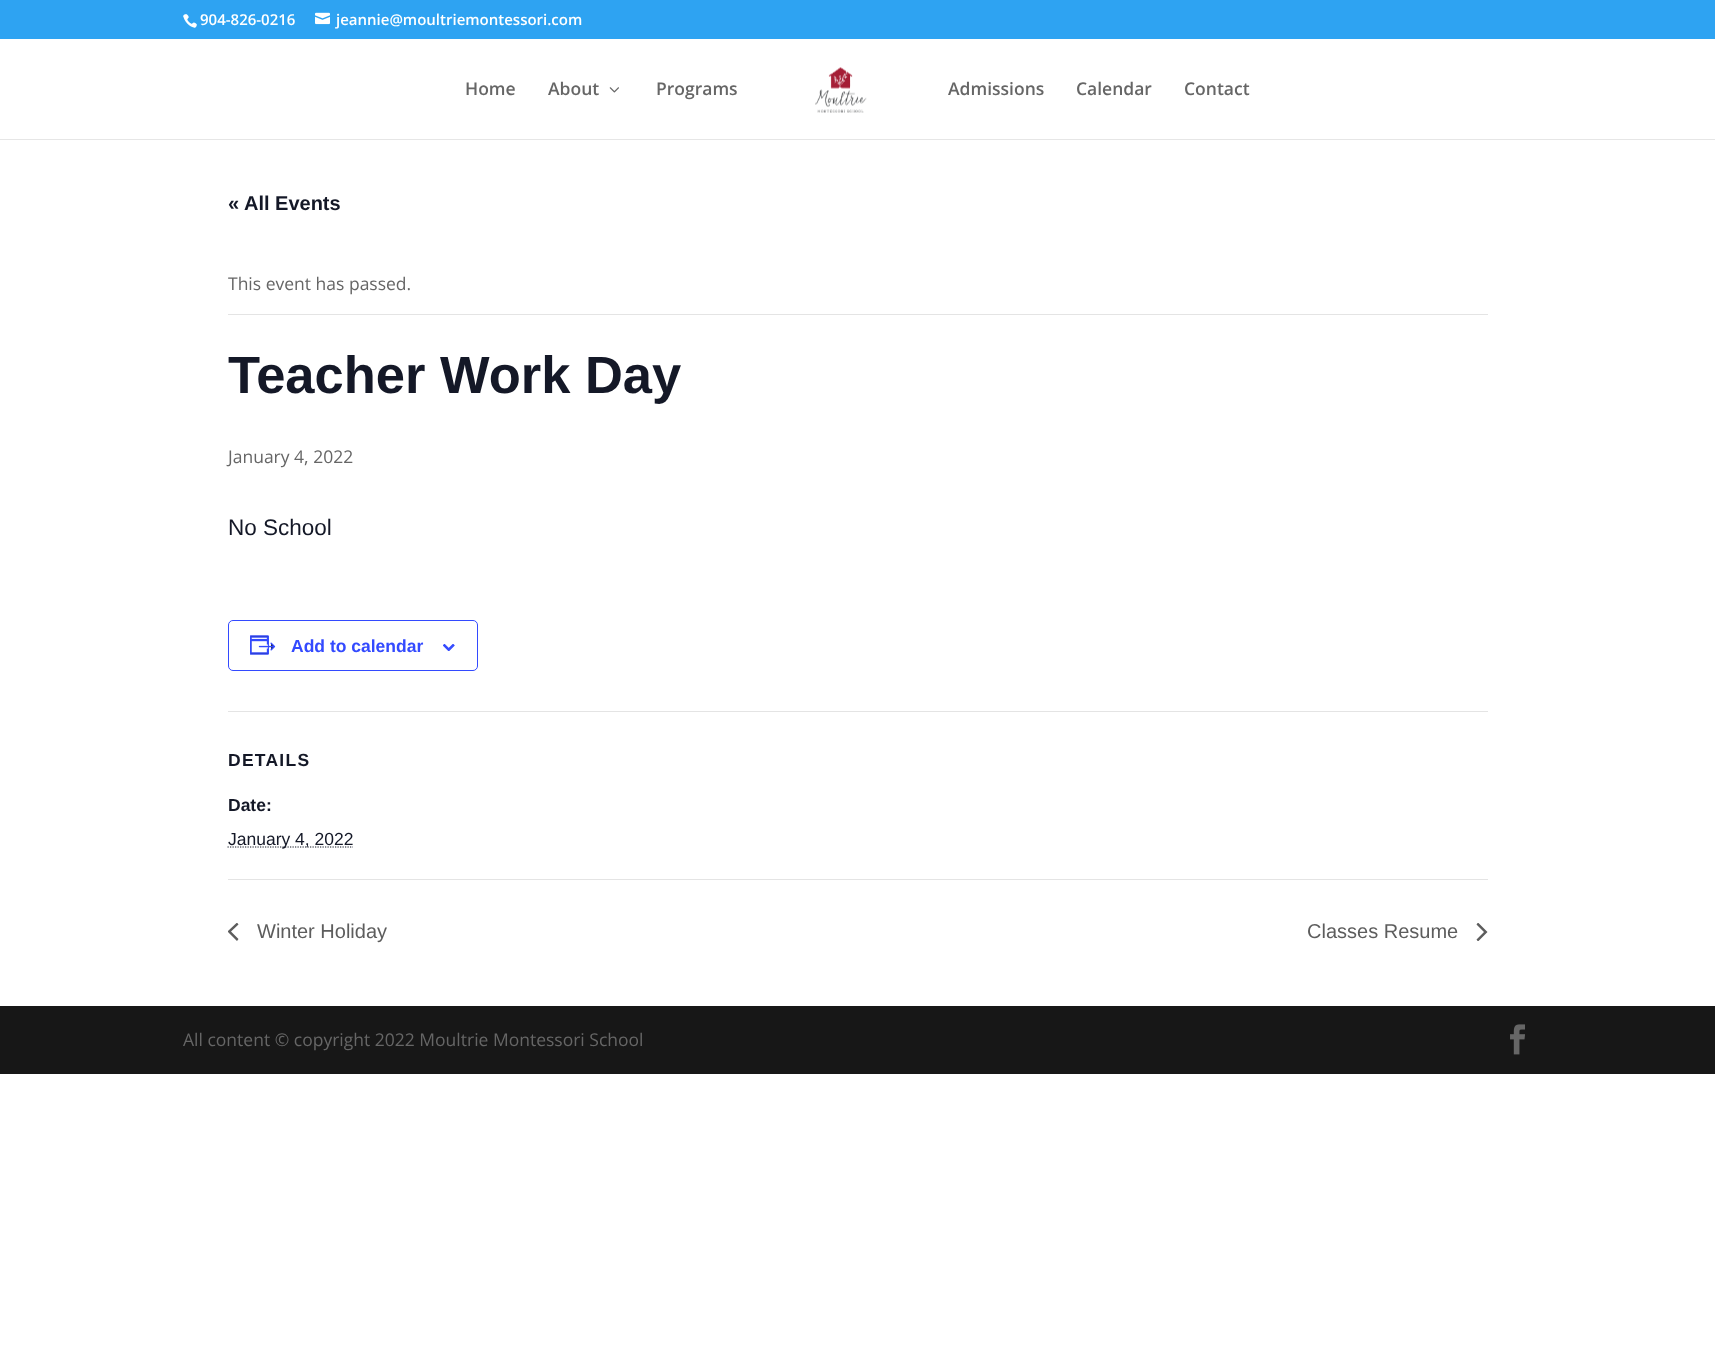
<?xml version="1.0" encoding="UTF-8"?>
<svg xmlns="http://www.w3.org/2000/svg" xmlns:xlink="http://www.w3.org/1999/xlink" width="1715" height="1347">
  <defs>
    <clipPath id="clip1"><rect x="228" y="923" width="11" height="18" /></clipPath>
    <clipPath id="clip2"><rect x="1476" y="923" width="12" height="18" /></clipPath>
  </defs>
  <rect width="100%" height="100%" fill="#ffffff" />
  <rect width="1715" height="39" fill="#2ea3f2" />
  <image x="183" y="14" width="14" height="14" xlink:href="image1.png" />
  <image x="315" y="12" width="15" height="13" xlink:href="image2.png" />
  <rect y="139" width="1715" height="1" fill="#e6e6e6" />
  <image x="609" y="87" width="10" height="6" xlink:href="image3.png" />
  <image x="815" y="67" width="52" height="46" xlink:href="image4.png" />
  <rect x="228" y="314" width="1260" height="1" fill="#e4e4e4" />
  <rect x="228.5" y="620.5" width="249" height="50" rx="4.5" fill="none" stroke="#334aff" />
  <image x="250" y="635" width="26" height="20" xlink:href="image5.png" />
  <image x="443" y="644" width="12" height="7" xlink:href="image6.png" />
  <rect x="228" y="711" width="1260" height="1" fill="#e4e4e4" />
  <path d="M 227.5 847 h 125.5" fill="none" stroke="#141827" stroke-width="1.2" stroke-dasharray="1.25 1.25" />
  <rect x="228" y="879" width="1260" height="1" fill="#e4e4e4" />
  <g clip-path="url(#clip1)">
    <path d="M 238.5 939 l -1.5 2 l -9.5 -9.5 l 9.5 -9 l 1.5 2 l -7.5 7 z" fill="#5d5d5d" />
  </g>
  <g clip-path="url(#clip2)">
    <path d="M 1476.5 924.5 l 1.5 -2 l 9.5 9.5 l -9.5 9.5 l -1.5 -2 l 7.5 -7.5 z" fill="#5d5d5d" />
  </g>
  <rect y="1006" width="1715" height="68" fill="#171717" />
  <image x="1510" y="1024" width="15" height="31" xlink:href="image7.png" />
  <text x="200" y="25" style="font-family: Open Sans; font-size: 15px; font-weight: 600; fill: #ffffff">904-826-0216</text>
  <text x="336" y="25" style="font-family: Open Sans; font-size: 15px; font-weight: 600; fill: #ffffff">jeannie@moultriemontessori.com</text>
  <text x="465" y="95" style="font-family: Open Sans; font-size: 17.5px; font-weight: 600; fill: #666666">Home</text>
  <text x="548" y="95" style="font-family: Open Sans; font-size: 17.5px; font-weight: 600; fill: #666666">About</text>
  <text x="656" y="95" style="font-family: Open Sans; font-size: 17.5px; font-weight: 600; fill: #666666">Programs</text>
  <text x="948" y="95" style="font-family: Open Sans; font-size: 17.5px; font-weight: 600; fill: #666666">Admissions</text>
  <text x="1076" y="95" style="font-family: Open Sans; font-size: 17.5px; font-weight: 600; fill: #666666">Calendar</text>
  <text x="1184" y="95" style="font-family: Open Sans; font-size: 17.5px; font-weight: 600; fill: #666666">Contact</text>
  <text x="228" y="210" style="font-family: Liberation Sans; font-size: 20px; font-weight: bold; fill: #141827">« All Events</text>
  <text x="228" y="290" style="font-family: Open Sans; font-size: 17.5px; fill: #666666">This event has passed.</text>
  <text x="228" y="393" style="font-family: Liberation Sans; font-size: 52.5px; font-weight: bold; fill: #141827">Teacher Work Day</text>
  <text x="228" y="463" style="font-family: Open Sans; font-size: 17.5px; fill: #666666">January 4, 2022</text>
  <text x="228" y="535" style="font-family: Liberation Sans; font-size: 22.5px; fill: #141827">No School</text>
  <text x="291" y="652" style="font-family: Liberation Sans; font-size: 17.5px; font-weight: bold; fill: #334aff">Add to calendar</text>
  <text x="228" y="766" style="font-family: Liberation Sans; font-size: 17.5px; font-weight: bold; letter-spacing: 1.25px; fill: #141827">DETAILS</text>
  <text x="228" y="811" style="font-family: Liberation Sans; font-size: 17.5px; font-weight: bold; fill: #141827">Date:</text>
  <text x="228" y="845" style="font-family: Liberation Sans; font-size: 17.5px; fill: #141827">January 4, 2022</text>
  <text x="257" y="938" style="font-family: Liberation Sans; font-size: 20px; fill: #5d5d5d">Winter Holiday</text>
  <text x="1307" y="938" style="font-family: Liberation Sans; font-size: 20px; fill: #5d5d5d">Classes Resume</text>
  <text x="183" y="1046" style="font-family: Open Sans; font-size: 17.5px; fill: #666666">All content © copyright 2022 Moultrie Montessori School</text>
</svg>
